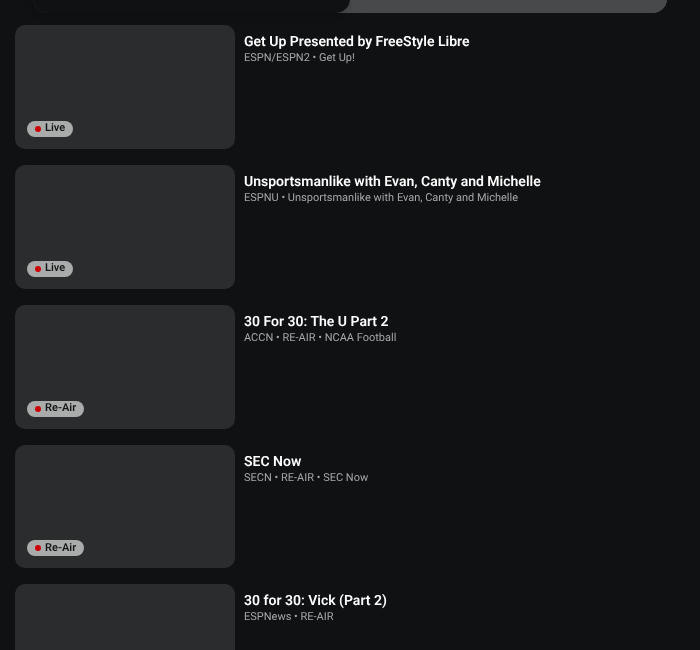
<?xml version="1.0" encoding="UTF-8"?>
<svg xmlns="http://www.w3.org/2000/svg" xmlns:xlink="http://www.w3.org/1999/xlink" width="700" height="650">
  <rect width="100%" height="100%" fill="#101113" />
  <rect x="33" y="-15" width="634" height="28" rx="15" fill="#48494a" />
  <rect x="33" y="-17" width="317" height="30" rx="15" fill="#000000" fill-opacity="0.25" filter="blur(4px)" />
  <rect x="33" y="-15" width="317" height="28" rx="15" fill="#101113" />
  <rect x="350" y="-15" width="317" height="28" rx="15" fill="#48494a" />
  <rect x="15" y="25" width="220" height="124" rx="10" fill="#2b2c2d" />
  <rect x="27" y="121" width="46" height="16" rx="8" fill="#aaabab" />
  <circle cx="38" cy="129" r="3" fill="#cc0000" />
  <rect x="15" y="165" width="220" height="124" rx="10" fill="#2b2c2d" />
  <rect x="27" y="261" width="46" height="16" rx="8" fill="#aaabab" />
  <circle cx="38" cy="269" r="3" fill="#cc0000" />
  <rect x="15" y="305" width="220" height="124" rx="10" fill="#2b2c2d" />
  <rect x="27" y="401" width="57" height="16" rx="8" fill="#aaabab" />
  <circle cx="38" cy="409" r="3" fill="#cc0000" />
  <rect x="15" y="445" width="220" height="123" rx="10" fill="#2b2c2d" />
  <rect x="27" y="540" width="57" height="16" rx="8" fill="#aaabab" />
  <circle cx="38" cy="548" r="3" fill="#cc0000" />
  <rect x="15" y="584" width="220" height="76" rx="10" fill="#2b2c2d" />
  <text x="244" y="46" style="font-family: Roboto; font-size: 14px; font-weight: 600; fill: #ffffff">Get Up Presented by FreeStyle Libre</text>
  <text x="244" y="61" style="font-family: Roboto; font-size: 11px; fill: #a5a6a7">ESPN/ESPN2 • Get Up!</text>
  <text x="45" y="131" style="font-family: Roboto; font-size: 11px; font-weight: 600; fill: #151617">Live</text>
  <text x="244" y="186" style="font-family: Roboto; font-size: 14px; font-weight: 600; fill: #ffffff">Unsportsmanlike with Evan, Canty and Michelle</text>
  <text x="244" y="201" style="font-family: Roboto; font-size: 11px; fill: #a5a6a7">ESPNU • Unsportsmanlike with Evan, Canty and Michelle</text>
  <text x="45" y="271" style="font-family: Roboto; font-size: 11px; font-weight: 600; fill: #151617">Live</text>
  <text x="244" y="326" style="font-family: Roboto; font-size: 14px; font-weight: 600; fill: #ffffff">30 For 30: The U Part 2</text>
  <text x="244" y="341" style="font-family: Roboto; font-size: 11px; fill: #a5a6a7">ACCN • RE-AIR • NCAA Football</text>
  <text x="45" y="411" style="font-family: Roboto; font-size: 11px; font-weight: 600; fill: #151617">Re-Air</text>
  <text x="244" y="466" style="font-family: Roboto; font-size: 14px; font-weight: 600; fill: #ffffff">SEC Now</text>
  <text x="244" y="481" style="font-family: Roboto; font-size: 11px; fill: #a5a6a7">SECN • RE-AIR • SEC Now</text>
  <text x="45" y="551" style="font-family: Roboto; font-size: 11px; font-weight: 600; fill: #151617">Re-Air</text>
  <text x="244" y="605" style="font-family: Roboto; font-size: 14px; font-weight: 600; fill: #ffffff">30 for 30: Vick (Part 2)</text>
  <text x="244" y="620" style="font-family: Roboto; font-size: 11px; fill: #a5a6a7">ESPNews • RE-AIR</text>
</svg>
